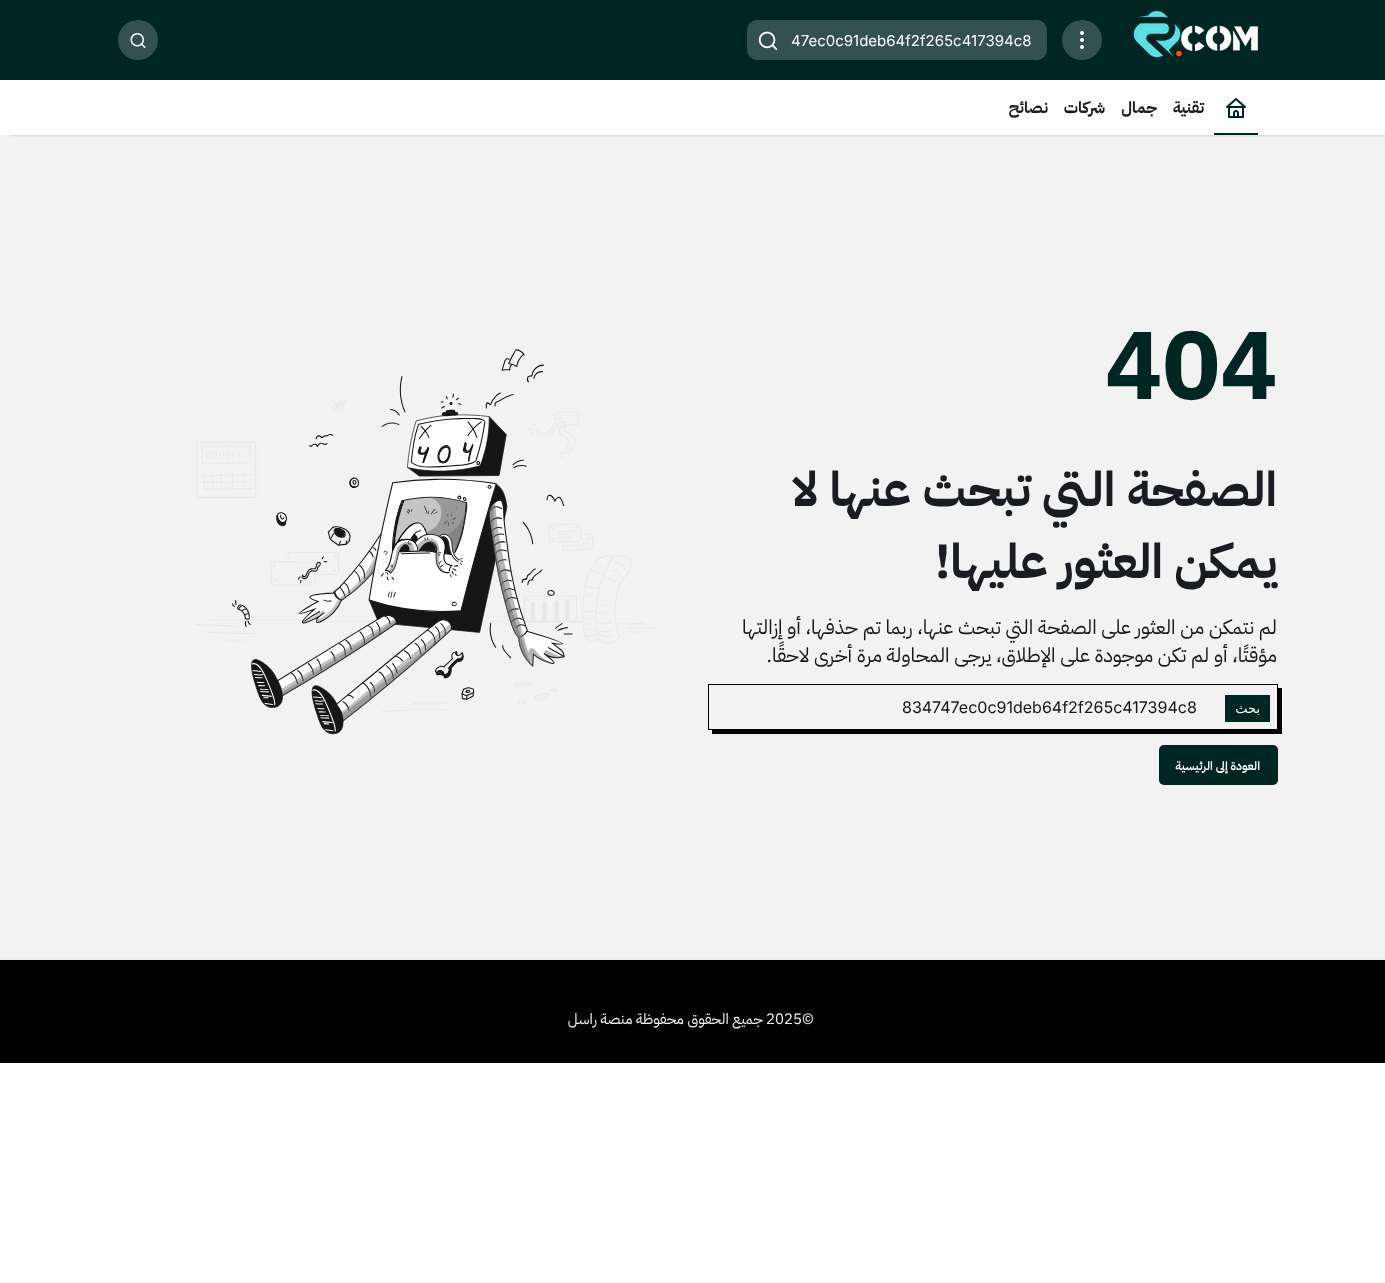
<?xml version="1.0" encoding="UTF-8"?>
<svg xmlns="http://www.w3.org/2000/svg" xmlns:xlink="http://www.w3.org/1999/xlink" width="1385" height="1283">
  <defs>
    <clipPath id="clip1"><rect x="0" y="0" width="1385" height="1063" /></clipPath>
  </defs>
  <rect width="100%" height="100%" fill="#ffffff" />
  <rect y="135" width="1385" height="825" fill="#f2f2f3" />
  <rect x="10" y="81" width="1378" height="55" fill="#000000" fill-opacity="0.1" filter="blur(1px)" />
  <rect width="1385" height="80" fill="#002623" />
  <image x="1133" y="10" width="126" height="48" xlink:href="image1.png" />
  <circle cx="1082" cy="40" r="20" fill="#33514f" />
  <image x="1080" y="31" width="4" height="18" xlink:href="image2.png" />
  <rect x="747" y="20" width="300" height="40" rx="10" fill="#33514f" />
  <image x="758" y="31" width="20" height="19" xlink:href="image3.png" />
  <circle cx="138" cy="40" r="20" fill="#33514f" />
  <image x="130" y="33" width="16" height="15" xlink:href="image4.png" />
  <rect x="9" y="80" width="1376" height="55" fill="#ffffff" />
  <image x="1226" y="98" width="20" height="20" xlink:href="image5.png" />
  <rect x="1214" y="133" width="44" height="2" fill="#002623" />
  <path d="M 712 730 v 4 h 570 v -46 h -4 v 42 z" fill="#000000" />
  <rect x="708.5" y="684.5" width="569" height="45" fill="none" stroke="#000000" />
  <rect x="1225" y="695" width="45" height="27" fill="#002623" />
  <rect x="1159" y="745" width="119" height="40" rx="5" fill="#002623" />
  <image x="195" y="349" width="463" height="386" xlink:href="image6.png" />
  <g clip-path="url(#clip1)">
    <rect y="960" width="1385" height="103" fill="#32353d" fill-opacity="0.1" filter="blur(2.5px)" />
  </g>
  <rect y="960" width="1385" height="103" fill="#000000" />
  <text x="791" y="46" style="font-family: Inter; font-size: 15px; fill: #ffffff">47ec0c91deb64f2f265c417394c8</text>
  <text x="1204" y="113" style="font-family: IBM Plex Sans Arabic; font-size: 16px; font-weight: bold; letter-spacing: -0.25px; direction: rtl; fill: #191c20">تقنية</text>
  <text x="1157" y="113" style="font-family: IBM Plex Sans Arabic; font-size: 16px; font-weight: bold; letter-spacing: -0.25px; direction: rtl; fill: #191c20">جمال</text>
  <text x="1105" y="113" style="font-family: IBM Plex Sans Arabic; font-size: 16px; font-weight: bold; letter-spacing: -0.25px; direction: rtl; fill: #191c20">شركات</text>
  <text x="1048" y="113" style="font-family: IBM Plex Sans Arabic; font-size: 16px; font-weight: bold; letter-spacing: -0.25px; direction: rtl; fill: #191c20">نصائح</text>
  <text x="1105" y="399" style="font-family: IBM Plex Sans Arabic; font-size: 96px; font-weight: bold; fill: #002623">404</text>
  <text x="1277" y="506" style="font-family: IBM Plex Sans Arabic; font-size: 48px; font-weight: bold; direction: rtl; fill: #191c20">الصفحة التي تبحث عنها لا</text>
  <text x="1277" y="578" style="font-family: IBM Plex Sans Arabic; font-size: 48px; font-weight: bold; direction: rtl; fill: #191c20">يمكن العثور عليها!</text>
  <text x="1277" y="634" style="font-family: IBM Plex Sans Arabic; font-size: 20px; direction: rtl; fill: #161616">لم نتمكن من العثور على الصفحة التي تبحث عنها، ربما تم حذفها، أو إزالتها</text>
  <text x="1277" y="662" style="font-family: IBM Plex Sans Arabic; font-size: 20px; direction: rtl; fill: #161616">مؤقتًا، أو لم تكن موجودة على الإطلاق، يرجى المحاولة مرة أخرى لاحقًا.</text>
  <text x="1260" y="713" style="font-family: DejaVu Sans; font-size: 13px; direction: rtl; fill: #ffffff">بحث</text>
  <text x="902" y="713" style="font-family: Inter; font-size: 16px; fill: #161616">834747ec0c91deb64f2f265c417394c8</text>
  <text x="1260" y="770" style="font-family: IBM Plex Sans Arabic; font-size: 12px; font-weight: 600; direction: rtl; fill: #ffffff">العودة إلى الرئيسية</text>
  <text x="766" y="1024" style="font-family: IBM Plex Sans Arabic; font-size: 15px; fill: #f2f2f2">2025©</text>
  <text x="763" y="1024" style="font-family: IBM Plex Sans Arabic; font-size: 15px; direction: rtl; fill: #f2f2f2">جميع الحقوق محفوظة منصة راسل</text>
</svg>
